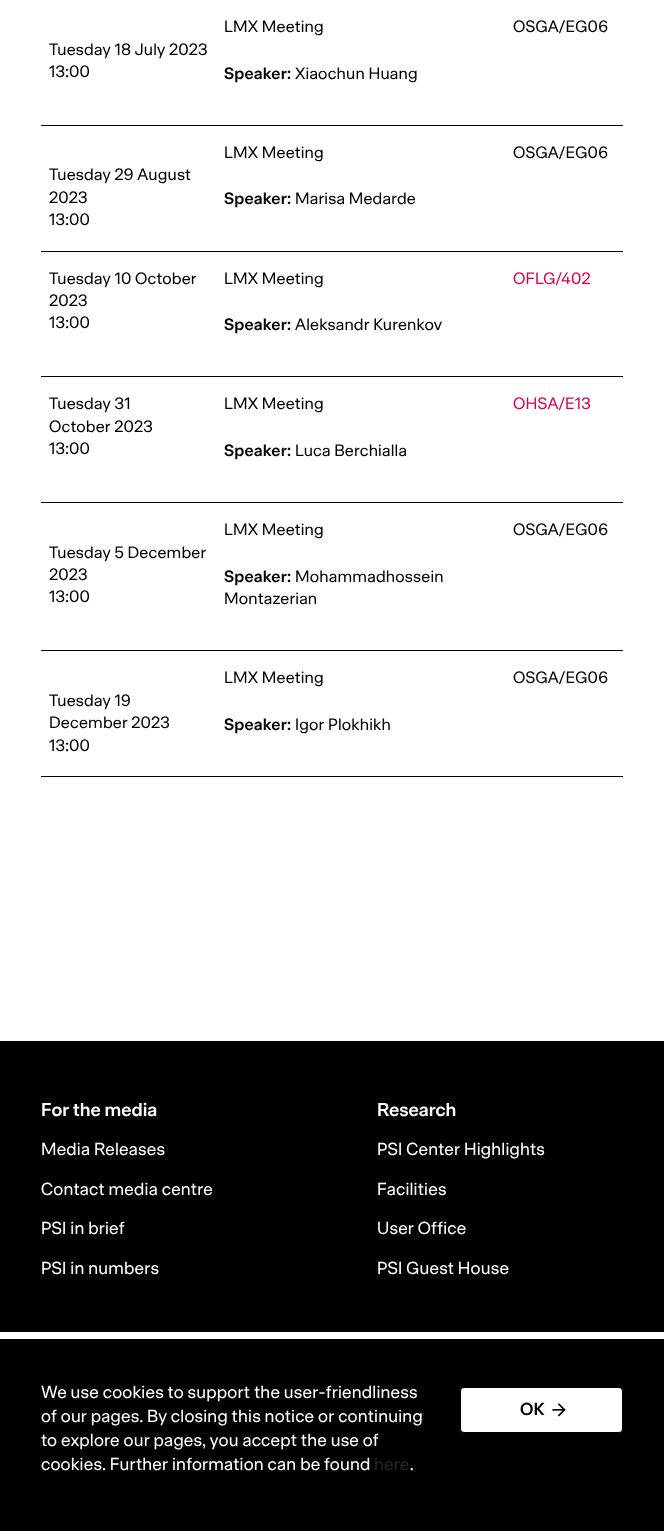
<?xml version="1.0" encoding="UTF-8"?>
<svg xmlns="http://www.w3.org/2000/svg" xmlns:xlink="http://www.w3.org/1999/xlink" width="664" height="1531">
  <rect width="100%" height="100%" fill="#ffffff" />
  <rect x="41" y="125" width="582" height="1" fill="#000000" />
  <rect x="41" y="251" width="582" height="1" fill="#000000" />
  <rect x="41" y="376" width="582" height="1" fill="#000000" />
  <rect x="41" y="502" width="582" height="1" fill="#000000" />
  <rect x="41" y="650" width="582" height="1" fill="#000000" />
  <rect x="41" y="776" width="582" height="1" fill="#000000" />
  <rect y="1041" width="664" height="291" fill="#000000" />
  <rect y="1339" width="664" height="192" fill="#000000" />
  <rect x="460.5" y="1387.5" width="162" height="45" rx="3.5" fill="#ffffff" stroke="#000000" />
  <image x="552" y="1403" width="14" height="14" xlink:href="image1.png" />
  <text x="224" y="32" style="font-family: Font; font-size: 16px; letter-spacing: 0.2px; fill: #000000">LMX Meeting</text>
  <text x="224" y="79" style="font-family: Font; font-size: 16px; font-weight: 600; letter-spacing: 0.2px; fill: #000000">Speaker:</text>
  <text x="295" y="79" style="font-family: Font; font-size: 16px; letter-spacing: 0.2px; fill: #000000">Xiaochun Huang</text>
  <text x="513" y="32" style="font-family: Font; font-size: 16px; letter-spacing: 0.2px; fill: #000000">OSGA/EG06</text>
  <text x="49" y="55" style="font-family: Font; font-size: 16px; letter-spacing: 0.2px; fill: #000000">Tuesday 18 July 2023</text>
  <text x="49" y="77" style="font-family: Font; font-size: 16px; letter-spacing: 0.2px; fill: #000000">13:00</text>
  <text x="224" y="158" style="font-family: Font; font-size: 16px; letter-spacing: 0.2px; fill: #000000">LMX Meeting</text>
  <text x="224" y="204" style="font-family: Font; font-size: 16px; font-weight: 600; letter-spacing: 0.2px; fill: #000000">Speaker:</text>
  <text x="295" y="204" style="font-family: Font; font-size: 16px; letter-spacing: 0.2px; fill: #000000">Marisa Medarde</text>
  <text x="513" y="158" style="font-family: Font; font-size: 16px; letter-spacing: 0.2px; fill: #000000">OSGA/EG06</text>
  <text x="49" y="180" style="font-family: Font; font-size: 16px; letter-spacing: 0.2px; fill: #000000">Tuesday 29 August</text>
  <text x="49" y="203" style="font-family: Font; font-size: 16px; letter-spacing: 0.2px; fill: #000000">2023</text>
  <text x="49" y="225" style="font-family: Font; font-size: 16px; letter-spacing: 0.2px; fill: #000000">13:00</text>
  <text x="49" y="284" style="font-family: Font; font-size: 16px; letter-spacing: 0.2px; fill: #000000">Tuesday 10 October</text>
  <text x="49" y="306" style="font-family: Font; font-size: 16px; letter-spacing: 0.2px; fill: #000000">2023</text>
  <text x="49" y="328" style="font-family: Font; font-size: 16px; letter-spacing: 0.2px; fill: #000000">13:00</text>
  <text x="224" y="284" style="font-family: Font; font-size: 16px; letter-spacing: 0.2px; fill: #000000">LMX Meeting</text>
  <text x="224" y="330" style="font-family: Font; font-size: 16px; font-weight: 600; letter-spacing: 0.2px; fill: #000000">Speaker:</text>
  <text x="295" y="330" style="font-family: Font; font-size: 16px; letter-spacing: 0.2px; fill: #000000">Aleksandr Kurenkov</text>
  <text x="513" y="284" style="font-family: Font; font-size: 16px; letter-spacing: 0.2px; fill: #dc005a">OFLG/402</text>
  <text x="49" y="409" style="font-family: Font; font-size: 16px; letter-spacing: 0.2px; fill: #000000">Tuesday 31</text>
  <text x="49" y="432" style="font-family: Font; font-size: 16px; letter-spacing: 0.2px; fill: #000000">October 2023</text>
  <text x="49" y="454" style="font-family: Font; font-size: 16px; letter-spacing: 0.2px; fill: #000000">13:00</text>
  <text x="224" y="409" style="font-family: Font; font-size: 16px; letter-spacing: 0.2px; fill: #000000">LMX Meeting</text>
  <text x="224" y="456" style="font-family: Font; font-size: 16px; font-weight: 600; letter-spacing: 0.2px; fill: #000000">Speaker:</text>
  <text x="295" y="456" style="font-family: Font; font-size: 16px; letter-spacing: 0.2px; fill: #000000">Luca Berchialla</text>
  <text x="513" y="409" style="font-family: Font; font-size: 16px; letter-spacing: 0.2px; fill: #dc005a">OHSA/E13</text>
  <text x="224" y="535" style="font-family: Font; font-size: 16px; letter-spacing: 0.2px; fill: #000000">LMX Meeting</text>
  <text x="224" y="582" style="font-family: Font; font-size: 16px; font-weight: 600; letter-spacing: 0.2px; fill: #000000">Speaker:</text>
  <text x="295" y="582" style="font-family: Font; font-size: 16px; letter-spacing: 0.2px; fill: #000000">Mohammadhossein</text>
  <text x="224" y="604" style="font-family: Font; font-size: 16px; letter-spacing: 0.2px; fill: #000000">Montazerian</text>
  <text x="513" y="535" style="font-family: Font; font-size: 16px; letter-spacing: 0.2px; fill: #000000">OSGA/EG06</text>
  <text x="49" y="558" style="font-family: Font; font-size: 16px; letter-spacing: 0.2px; fill: #000000">Tuesday 5 December</text>
  <text x="49" y="580" style="font-family: Font; font-size: 16px; letter-spacing: 0.2px; fill: #000000">2023</text>
  <text x="49" y="602" style="font-family: Font; font-size: 16px; letter-spacing: 0.2px; fill: #000000">13:00</text>
  <text x="224" y="683" style="font-family: Font; font-size: 16px; letter-spacing: 0.2px; fill: #000000">LMX Meeting</text>
  <text x="224" y="730" style="font-family: Font; font-size: 16px; font-weight: 600; letter-spacing: 0.2px; fill: #000000">Speaker:</text>
  <text x="295" y="730" style="font-family: Font; font-size: 16px; letter-spacing: 0.2px; fill: #000000">Igor Plokhikh</text>
  <text x="513" y="683" style="font-family: Font; font-size: 16px; letter-spacing: 0.2px; fill: #000000">OSGA/EG06</text>
  <text x="49" y="706" style="font-family: Font; font-size: 16px; letter-spacing: 0.2px; fill: #000000">Tuesday 19</text>
  <text x="49" y="728" style="font-family: Font; font-size: 16px; letter-spacing: 0.2px; fill: #000000">December 2023</text>
  <text x="49" y="751" style="font-family: Font; font-size: 16px; letter-spacing: 0.2px; fill: #000000">13:00</text>
  <text x="41" y="1116" style="font-family: Font; font-size: 18px; font-weight: 600; fill: #ffffff">For the media</text>
  <text x="41" y="1155" style="font-family: Font; font-size: 17px; letter-spacing: 0.2px; fill: #ffffff">Media Releases</text>
  <text x="41" y="1195" style="font-family: Font; font-size: 17px; letter-spacing: 0.2px; fill: #ffffff">Contact media centre</text>
  <text x="41" y="1234" style="font-family: Font; font-size: 17px; letter-spacing: 0.2px; fill: #ffffff">PSI in brief</text>
  <text x="41" y="1274" style="font-family: Font; font-size: 17px; letter-spacing: 0.2px; fill: #ffffff">PSI in numbers</text>
  <text x="377" y="1116" style="font-family: Font; font-size: 18px; font-weight: 600; fill: #ffffff">Research</text>
  <text x="377" y="1155" style="font-family: Font; font-size: 17px; letter-spacing: 0.2px; fill: #ffffff">PSI Center Highlights</text>
  <text x="377" y="1195" style="font-family: Font; font-size: 17px; letter-spacing: 0.2px; fill: #ffffff">Facilities</text>
  <text x="377" y="1234" style="font-family: Font; font-size: 17px; letter-spacing: 0.2px; fill: #ffffff">User Office</text>
  <text x="377" y="1274" style="font-family: Font; font-size: 17px; letter-spacing: 0.2px; fill: #ffffff">PSI Guest House</text>
  <text x="41" y="1398" style="font-family: Font; font-size: 17px; letter-spacing: 0.2px; fill: #ffffff">We use cookies to support the user-friendliness</text>
  <text x="41" y="1422" style="font-family: Font; font-size: 17px; letter-spacing: 0.2px; fill: #ffffff">of our pages. By closing this notice or continuing</text>
  <text x="41" y="1446" style="font-family: Font; font-size: 17px; letter-spacing: 0.2px; fill: #ffffff">to explore our pages, you accept the use of</text>
  <text x="41" y="1470" style="font-family: Font; font-size: 17px; letter-spacing: 0.2px; fill: #ffffff">cookies. Further information can be found</text>
  <text x="374" y="1470" style="font-family: Font; font-size: 17px; letter-spacing: 0.2px; fill: #262626">here</text>
  <text x="410" y="1470" style="font-family: Font; font-size: 17px; letter-spacing: 0.2px; fill: #ffffff">.</text>
  <text x="520" y="1415" style="font-family: Font; font-size: 17px; font-weight: 600; fill: #000000">OK</text>
</svg>
